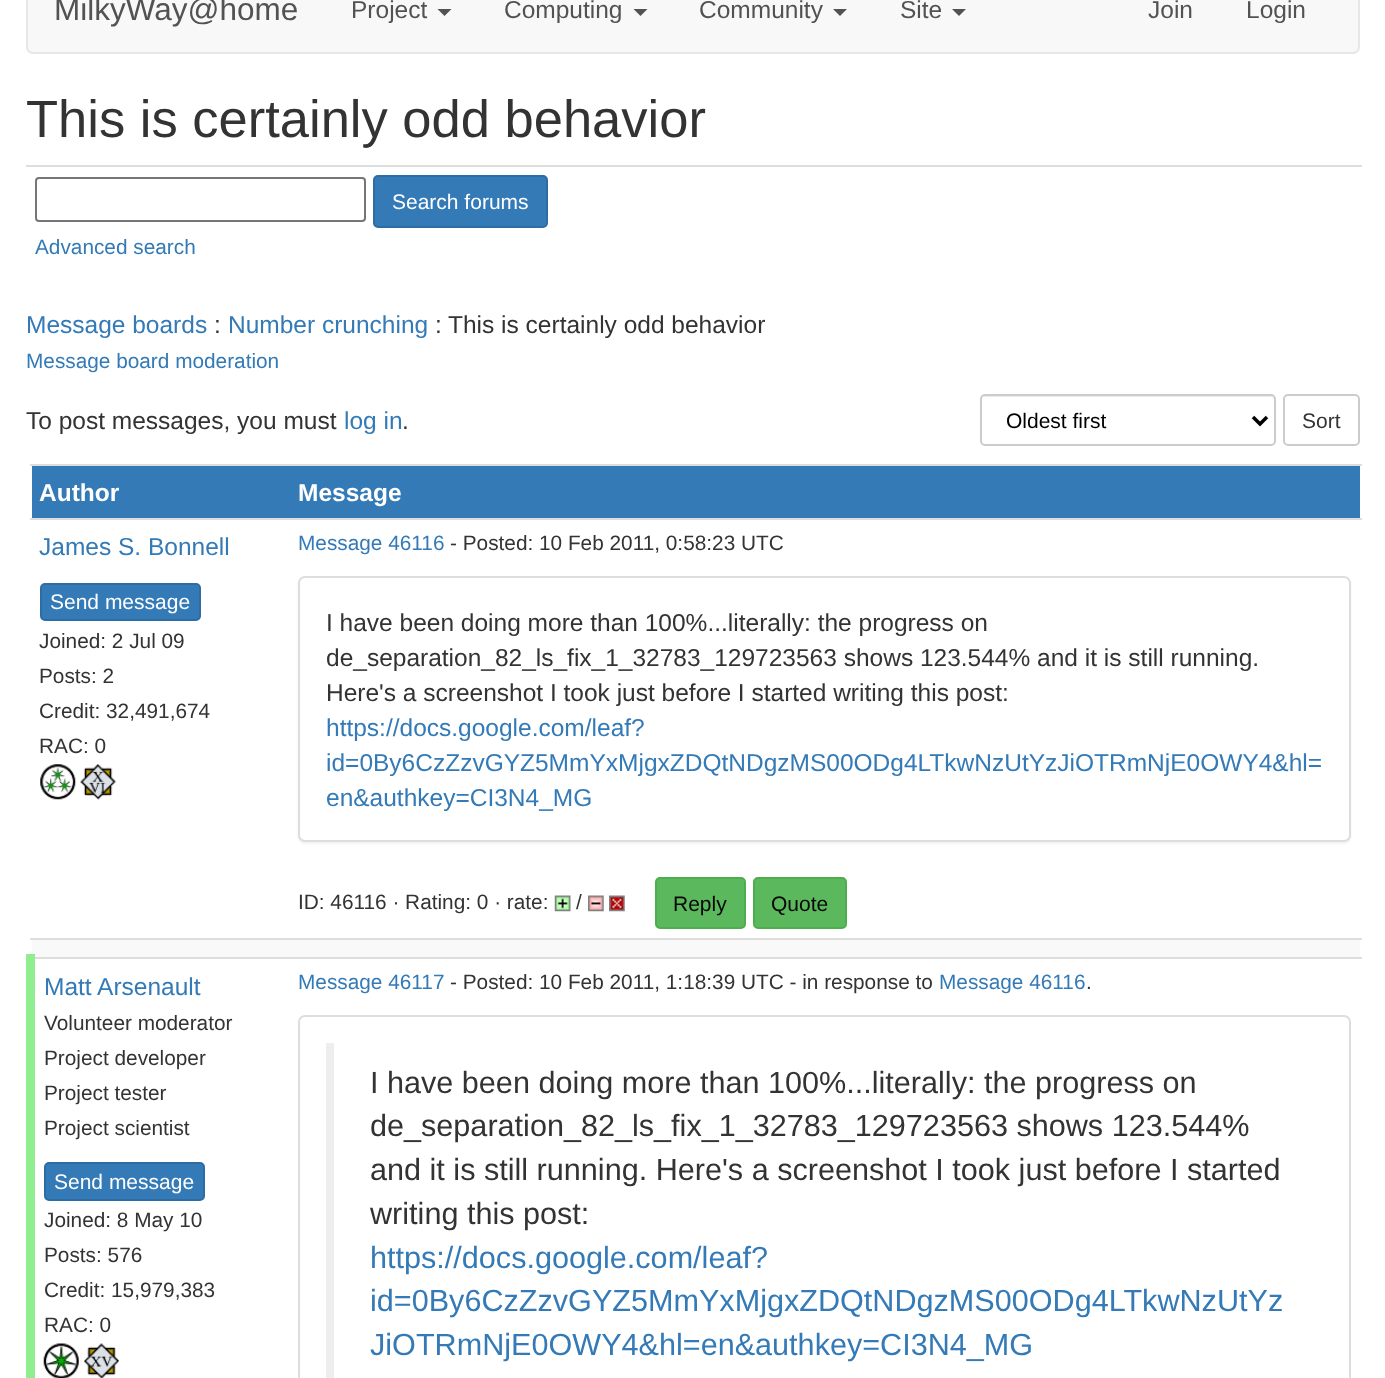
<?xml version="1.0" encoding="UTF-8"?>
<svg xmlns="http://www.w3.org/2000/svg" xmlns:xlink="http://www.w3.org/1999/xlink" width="1385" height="1378">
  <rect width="100%" height="100%" fill="#ffffff" />
  <rect x="27" y="-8" width="1332" height="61" rx="6" fill="#f8f8f8" stroke="#e7e7e7" stroke-width="2" />
  <path d="M 437.5 9 h 14 l -7 7 z" fill="#525252" />
  <path d="M 633.5 9 h 14 l -7 7 z" fill="#525252" />
  <path d="M 833 9 h 14 l -7 7 z" fill="#525252" />
  <path d="M 952 9 h 14 l -7 7 z" fill="#525252" />
  <rect x="26" y="165" width="1336" height="2" fill="#dddddd" />
  <rect x="36" y="178" width="329" height="43" rx="3" fill="none" stroke="#767676" stroke-width="2" />
  <rect x="374" y="176" width="173" height="51" rx="4" fill="#337ab7" stroke="#2e6da4" stroke-width="2" />
  <path d="M 985 397 h 285 c 2 0 4 2 4 4 c 0 -3 -1 -5 -4 -5 h -284 c -3 0 -4 2 -4 5 c 0 -2 1 -4 3 -4 z" fill="#ececec" />
  <rect x="981" y="395" width="294" height="50" rx="4" fill="none" stroke="#cccccc" stroke-width="2" />
  <path d="M 1253 417 l 7 7 l 7 -7" fill="none" stroke="#000000" stroke-width="3.5" />
  <rect x="1284" y="395" width="75" height="50" rx="4" fill="none" stroke="#cccccc" stroke-width="2" />
  <rect x="32" y="466" width="1328" height="52" fill="#337ab7" />
  <rect x="30" y="464" width="1332" height="2" fill="#dddddd" />
  <rect x="41" y="584" width="159" height="36" rx="4" fill="#337ab7" stroke="#2e6da4" stroke-width="2" />
  <image x="40" y="764" width="36" height="36" xlink:href="image1.png" />
  <image x="80" y="764" width="36" height="36" xlink:href="image2.png" />
  <rect x="30" y="518" width="1332" height="2" fill="#dddddd" />
  <rect x="298" y="578" width="1053" height="266" rx="7" fill="#000000" fill-opacity="0.05" filter="blur(1px)" />
  <rect x="299" y="577" width="1051" height="264" rx="6" fill="#ffffff" stroke="#dddddd" stroke-width="2" />
  <image x="554" y="895" width="17" height="17" xlink:href="image3.png" />
  <image x="588" y="895" width="16" height="17" xlink:href="image4.png" />
  <image x="609" y="895" width="16" height="17" xlink:href="image5.png" />
  <rect x="656" y="878" width="89" height="50" rx="4" fill="#5cb85c" stroke="#4cae4c" stroke-width="2" />
  <rect x="754" y="878" width="92" height="50" rx="4" fill="#5cb85c" stroke="#4cae4c" stroke-width="2" />
  <rect x="32" y="940" width="1328" height="17" fill="#f9f9f9" />
  <rect x="30" y="938" width="1332" height="2" fill="#dddddd" />
  <rect x="30" y="957" width="1332" height="2" fill="#dddddd" />
  <rect x="26" y="954" width="9" height="424" fill="#90ee90" />
  <rect x="45" y="1163" width="159" height="37" rx="4" fill="#337ab7" stroke="#2e6da4" stroke-width="2" />
  <image x="43" y="1343" width="36" height="35" xlink:href="image6.png" />
  <image x="84" y="1343" width="35" height="35" xlink:href="image7.png" />
  <rect x="299" y="1016" width="1051" height="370" rx="6" fill="none" stroke="#dddddd" stroke-width="2" />
  <rect x="326" y="1043" width="8" height="335" fill="#eeeeee" />
  <text x="54" y="20" style="font-family: Liberation Sans; font-size: 31.5px; fill: #525252">MilkyWay@home</text>
  <text x="351" y="18" style="font-family: Liberation Sans; font-size: 24.5px; fill: #525252">Project</text>
  <text x="504" y="18" style="font-family: Liberation Sans; font-size: 24.5px; fill: #525252">Computing</text>
  <text x="699" y="18" style="font-family: Liberation Sans; font-size: 24.5px; fill: #525252">Community</text>
  <text x="900" y="18" style="font-family: Liberation Sans; font-size: 24.5px; fill: #525252">Site</text>
  <text x="1148" y="18" style="font-family: Liberation Sans; font-size: 24.5px; fill: #525252">Join</text>
  <text x="1246" y="18" style="font-family: Liberation Sans; font-size: 24.5px; fill: #525252">Login</text>
  <text x="26" y="137" style="font-family: Liberation Sans; font-size: 52.5px; fill: #333333">This is certainly odd behavior</text>
  <text x="392" y="209" style="font-family: Liberation Sans; font-size: 21px; fill: #ffffff">Search forums</text>
  <text x="35" y="254" style="font-family: Liberation Sans; font-size: 20.8px; fill: #337ab7">Advanced search</text>
  <text x="26" y="333" style="font-family: Liberation Sans; font-size: 24.5px; fill: #337ab7">Message boards</text>
  <text x="214" y="333" style="font-family: Liberation Sans; font-size: 24.5px; fill: #333333">:</text>
  <text x="228" y="333" style="font-family: Liberation Sans; font-size: 24.5px; fill: #337ab7">Number crunching</text>
  <text x="435" y="333" style="font-family: Liberation Sans; font-size: 24.5px; fill: #333333">:</text>
  <text x="448" y="333" style="font-family: Liberation Sans; font-size: 24.5px; fill: #333333">This is certainly odd behavior</text>
  <text x="26" y="368" style="font-family: Liberation Sans; font-size: 20.8px; fill: #337ab7">Message board moderation</text>
  <text x="26" y="429" style="font-family: Liberation Sans; font-size: 24.5px; fill: #333333">To post messages, you must</text>
  <text x="344" y="429" style="font-family: Liberation Sans; font-size: 24.5px; fill: #337ab7">log in</text>
  <text x="402" y="429" style="font-family: Liberation Sans; font-size: 24.5px; fill: #333333">.</text>
  <text x="1006" y="428" style="font-family: Liberation Sans; font-size: 21px; fill: #000000">Oldest first</text>
  <text x="1302" y="428" style="font-family: Liberation Sans; font-size: 21px; fill: #333333">Sort</text>
  <text x="39" y="501" style="font-family: Liberation Sans; font-size: 24.5px; font-weight: bold; fill: #ffffff">Author</text>
  <text x="298" y="501" style="font-family: Liberation Sans; font-size: 24.5px; font-weight: bold; fill: #ffffff">Message</text>
  <text x="39" y="555" style="font-family: Liberation Sans; font-size: 24.5px; fill: #337ab7">James S. Bonnell</text>
  <text x="50" y="609" style="font-family: Liberation Sans; font-size: 21px; fill: #ffffff">Send message</text>
  <text x="39" y="648" style="font-family: Liberation Sans; font-size: 20.8px; fill: #333333">Joined: 2 Jul 09</text>
  <text x="39" y="683" style="font-family: Liberation Sans; font-size: 20.8px; fill: #333333">Posts: 2</text>
  <text x="39" y="718" style="font-family: Liberation Sans; font-size: 20.8px; fill: #333333">Credit: 32,491,674</text>
  <text x="39" y="753" style="font-family: Liberation Sans; font-size: 20.8px; fill: #333333">RAC: 0</text>
  <text x="298" y="550" style="font-family: Liberation Sans; font-size: 20.8px; fill: #337ab7">Message 46116</text>
  <text x="450" y="550" style="font-family: Liberation Sans; font-size: 20.8px; fill: #333333">- Posted: 10 Feb 2011, 0:58:23 UTC</text>
  <text x="326" y="631" style="font-family: Liberation Sans; font-size: 24.5px; fill: #333333">I have been doing more than 100%...literally: the progress on</text>
  <text x="326" y="666" style="font-family: Liberation Sans; font-size: 24.5px; fill: #333333">de_separation_82_ls_fix_1_32783_129723563 shows 123.544% and it is still running.</text>
  <text x="326" y="701" style="font-family: Liberation Sans; font-size: 24.5px; fill: #333333">Here's a screenshot I took just before I started writing this post:</text>
  <text x="326" y="736" style="font-family: Liberation Sans; font-size: 24.5px; fill: #337ab7">https://docs.google.com/leaf?</text>
  <text x="326" y="771" style="font-family: Liberation Sans; font-size: 24.5px; fill: #337ab7">id=0By6CzZzvGYZ5MmYxMjgxZDQtNDgzMS00ODg4LTkwNzUtYzJiOTRmNjE0OWY4&amp;hl=</text>
  <text x="326" y="806" style="font-family: Liberation Sans; font-size: 24.5px; fill: #337ab7">en&amp;authkey=CI3N4_MG</text>
  <text x="298" y="909" style="font-family: Liberation Sans; font-size: 20.8px; fill: #333333">ID: 46116 · Rating: 0 · rate:</text>
  <text x="576" y="909" style="font-family: Liberation Sans; font-size: 20.8px; fill: #333333">/</text>
  <text x="673" y="911" style="font-family: Liberation Sans; font-size: 21px; fill: #080808">Reply</text>
  <text x="771" y="911" style="font-family: Liberation Sans; font-size: 21px; fill: #080808">Quote</text>
  <text x="44" y="995" style="font-family: Liberation Sans; font-size: 24.5px; fill: #337ab7">Matt Arsenault</text>
  <text x="44" y="1030" style="font-family: Liberation Sans; font-size: 20.8px; fill: #333333">Volunteer moderator</text>
  <text x="44" y="1065" style="font-family: Liberation Sans; font-size: 20.8px; fill: #333333">Project developer</text>
  <text x="44" y="1100" style="font-family: Liberation Sans; font-size: 20.8px; fill: #333333">Project tester</text>
  <text x="44" y="1135" style="font-family: Liberation Sans; font-size: 20.8px; fill: #333333">Project scientist</text>
  <text x="54" y="1189" style="font-family: Liberation Sans; font-size: 21px; fill: #ffffff">Send message</text>
  <text x="44" y="1227" style="font-family: Liberation Sans; font-size: 20.8px; fill: #333333">Joined: 8 May 10</text>
  <text x="44" y="1262" style="font-family: Liberation Sans; font-size: 20.8px; fill: #333333">Posts: 576</text>
  <text x="44" y="1297" style="font-family: Liberation Sans; font-size: 20.8px; fill: #333333">Credit: 15,979,383</text>
  <text x="44" y="1332" style="font-family: Liberation Sans; font-size: 20.8px; fill: #333333">RAC: 0</text>
  <text x="298" y="989" style="font-family: Liberation Sans; font-size: 20.8px; fill: #337ab7">Message 46117</text>
  <text x="450" y="989" style="font-family: Liberation Sans; font-size: 20.8px; fill: #333333">- Posted: 10 Feb 2011, 1:18:39 UTC - in response to</text>
  <text x="939" y="989" style="font-family: Liberation Sans; font-size: 20.8px; fill: #337ab7">Message 46116</text>
  <text x="1086" y="989" style="font-family: Liberation Sans; font-size: 20.8px; fill: #333333">.</text>
  <text x="370" y="1093" style="font-family: Liberation Sans; font-size: 30.6px; fill: #333333">I have been doing more than 100%...literally: the progress on</text>
  <text x="370" y="1136" style="font-family: Liberation Sans; font-size: 30.6px; fill: #333333">de_separation_82_ls_fix_1_32783_129723563 shows 123.544%</text>
  <text x="370" y="1180" style="font-family: Liberation Sans; font-size: 30.6px; fill: #333333">and it is still running. Here's a screenshot I took just before I started</text>
  <text x="370" y="1224" style="font-family: Liberation Sans; font-size: 30.6px; fill: #333333">writing this post:</text>
  <text x="370" y="1268" style="font-family: Liberation Sans; font-size: 30.6px; fill: #337ab7">https://docs.google.com/leaf?</text>
  <text x="370" y="1311" style="font-family: Liberation Sans; font-size: 30.6px; fill: #337ab7">id=0By6CzZzvGYZ5MmYxMjgxZDQtNDgzMS00ODg4LTkwNzUtYz</text>
  <text x="370" y="1355" style="font-family: Liberation Sans; font-size: 30.6px; fill: #337ab7">JiOTRmNjE0OWY4&amp;hl=en&amp;authkey=CI3N4_MG</text>
</svg>
